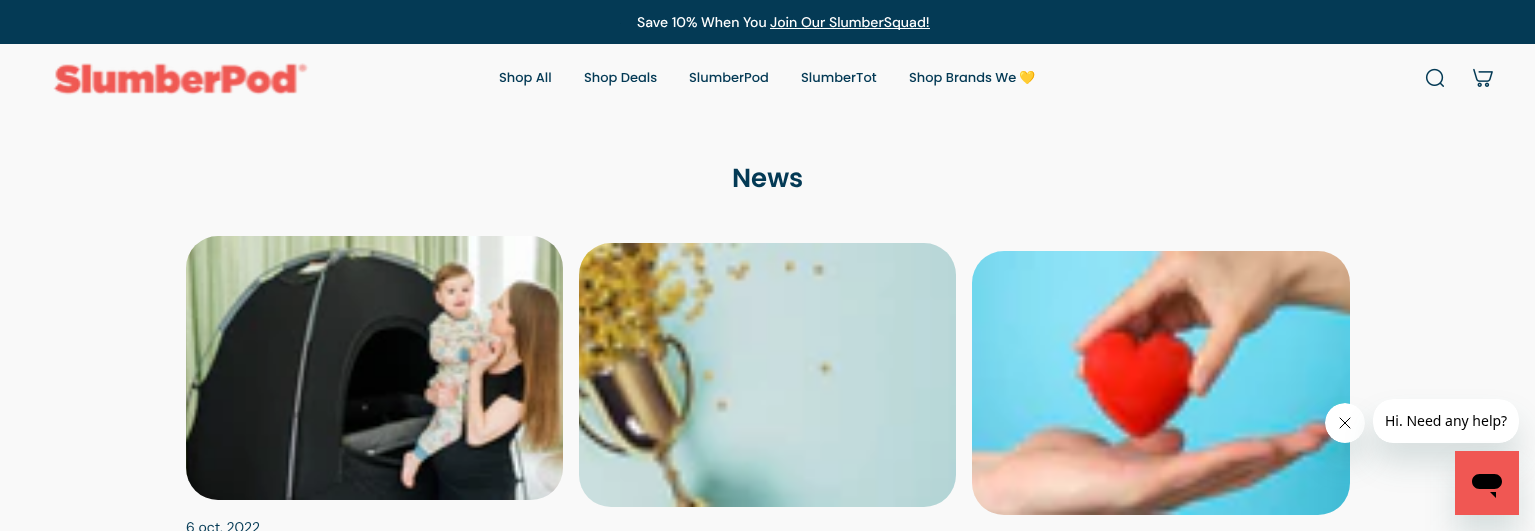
<?xml version="1.0" encoding="UTF-8"?>
<svg xmlns="http://www.w3.org/2000/svg" xmlns:xlink="http://www.w3.org/1999/xlink" width="1535" height="531">
  <rect width="100%" height="100%" fill="#f9f9f9" />
  <rect width="1535" height="44" fill="#043a55" />
  <rect x="620" y="23" width="1" height="1" fill="#013850" />
  <rect x="770" y="28" width="160" height="1" fill="#ffffff" />
  <image x="53" y="63" width="256" height="32" xlink:href="image1.png" />
  <image x="1425" y="68" width="19" height="19" xlink:href="image2.png" />
  <image x="1473" y="68" width="20" height="19" xlink:href="image3.png" />
  <image x="579" y="243" width="377" height="264" xlink:href="image4.png" />
  <image x="972" y="251" width="378" height="264" xlink:href="image5.png" />
  <image x="186" y="236" width="377" height="264" xlink:href="image6.png" />
  <rect x="1325" y="423" width="40" height="40" rx="20" fill="#17494d" fill-opacity="0.15" filter="blur(15px)" />
  <image x="1325" y="403" width="40" height="40" xlink:href="image8.png" />
  <rect x="1373" y="419" width="146" height="44" rx="20" fill="#17494d" fill-opacity="0.15" filter="blur(15px)" />
  <image x="1373" y="399" width="146" height="44" xlink:href="image7.png" />
  <rect x="1455" y="471" width="64" height="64" fill="#17494d" fill-opacity="0.15" filter="blur(15px)" />
  <image x="1455" y="451" width="64" height="64" xlink:href="image9.png" />
  <text x="637" y="27" style="font-family: DM Sans; font-size: 14px; font-weight: 500; fill: #ffffff">Save 10% When You</text>
  <text x="770" y="27" style="font-family: DM Sans; font-size: 14px; font-weight: 500; fill: #ffffff">Join Our SlumberSquad!</text>
  <text x="499" y="82" style="font-family: Poppins; font-size: 13px; font-weight: 500; fill: #043a55">Shop All</text>
  <text x="584" y="82" style="font-family: Poppins; font-size: 13px; font-weight: 500; fill: #043a55">Shop Deals</text>
  <text x="689" y="82" style="font-family: Poppins; font-size: 13px; font-weight: 500; fill: #043a55">SlumberPod</text>
  <text x="801" y="82" style="font-family: Poppins; font-size: 13px; font-weight: 500; fill: #043a55">SlumberTot</text>
  <text x="909" y="82" style="font-family: Poppins; font-size: 13px; font-weight: 500; fill: #043a55">Shop Brands We</text>
  <text x="1019" y="82" style="font-family: Noto Color Emoji; font-size: 13px; fill: #043a55">💛</text>
  <text x="732" y="187" style="font-family: Poppins; font-size: 26px; font-weight: 600; fill: #043a55">News</text>
  <text x="186" y="532" style="font-family: DM Sans; font-size: 14px; fill: #043a55">6 oct. 2022</text>
</svg>
